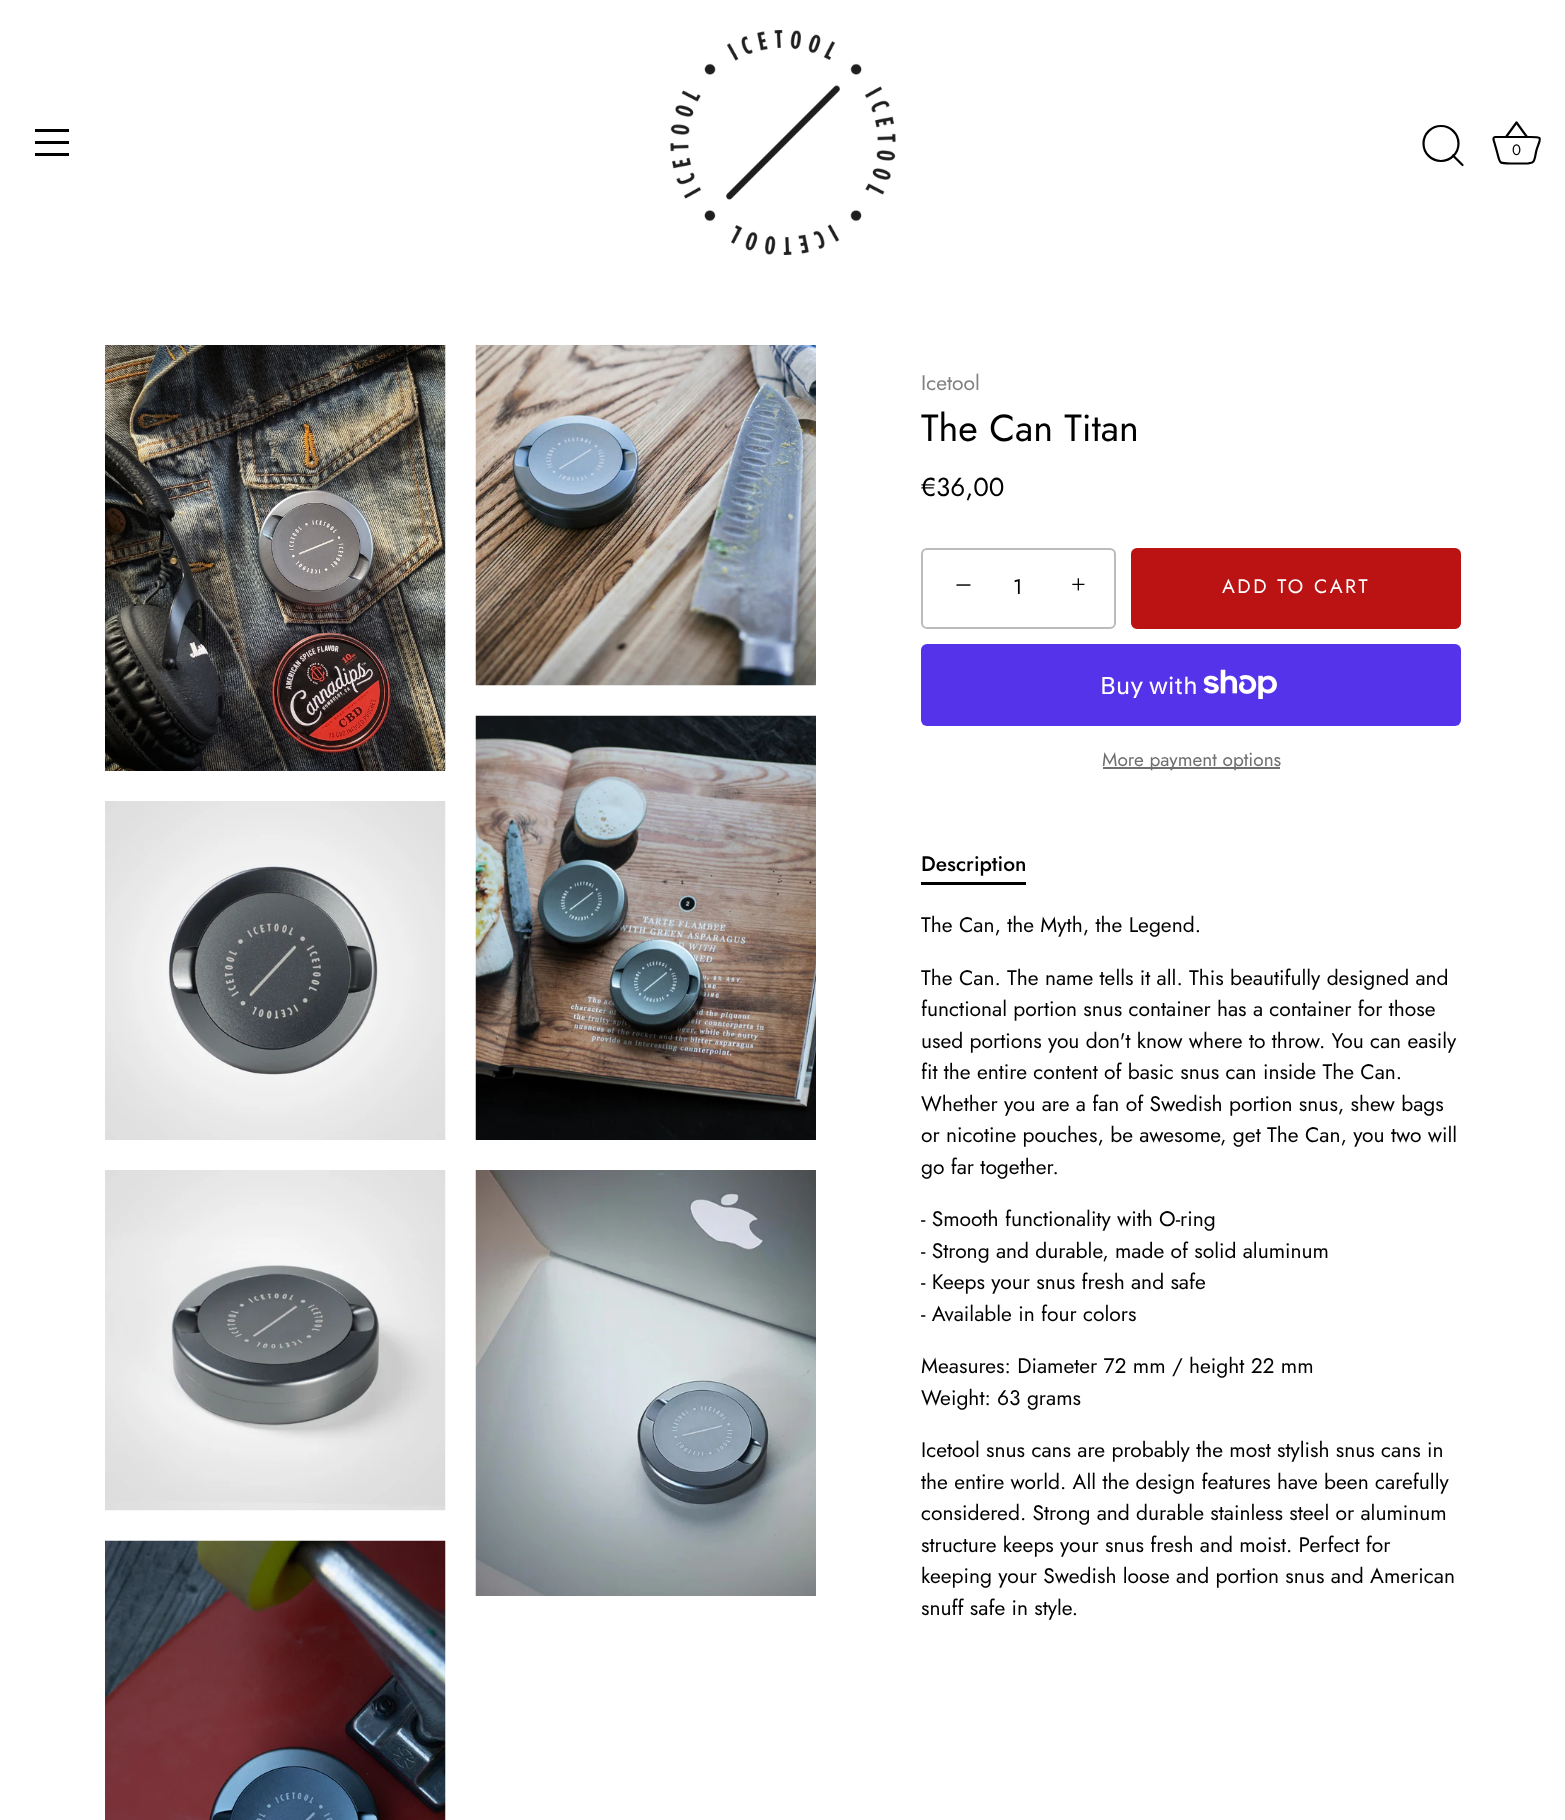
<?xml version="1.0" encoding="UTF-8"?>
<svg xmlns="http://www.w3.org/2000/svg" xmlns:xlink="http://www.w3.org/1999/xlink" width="1565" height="1820">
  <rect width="100%" height="100%" fill="#ffffff" />
  <rect x="35" y="129" width="34" height="3" fill="#000000" />
  <rect x="35" y="141" width="34" height="3" fill="#000000" />
  <rect x="35" y="153" width="34" height="3" fill="#000000" />
  <image x="670" y="30" width="226" height="225" xlink:href="image1.png" />
  <circle cx="1441" cy="143.5" r="17.5" fill="none" stroke="#000000" stroke-width="2.2" />
  <path d="M 1462.5 165 l -9.5 -9.5" fill="none" stroke="#000000" stroke-width="2.2" stroke-linecap="round" stroke-linejoin="round" />
  <path d="M 1495.5 137 c -3.5 0 -1.5 4.5 -1 6 l 2 7 c 4 14 1 13.5 15.5 13.5 h 13 c 11 0 9 -3 11.5 -13.5 c 4 -12.5 7 -13 -6 -13 h -35 m 10.5 0 l 10.5 -14.5 l 10.5 14.5" fill="none" stroke="#000000" stroke-width="2.2" stroke-linejoin="round" />
  <image x="105" y="345" width="341" height="426" xlink:href="image2.png" />
  <image x="105" y="801" width="341" height="339" xlink:href="image3.png" />
  <image x="105" y="1170" width="341" height="341" xlink:href="image4.png" />
  <image x="105" y="1540" width="341" height="280" xlink:href="image5.png" />
  <image x="475" y="345" width="341" height="341" xlink:href="image6.png" />
  <image x="475" y="715" width="341" height="425" xlink:href="image7.png" />
  <image x="475" y="1170" width="341" height="426" xlink:href="image8.png" />
  <rect x="922" y="549" width="193" height="79" rx="5" fill="none" stroke="#bbbbbb" stroke-width="2" />
  <rect x="1132" y="549" width="328" height="79" rx="5" fill="#bb1313" stroke="#bb1313" stroke-width="2" />
  <rect x="921" y="644" width="540" height="82" rx="6" fill="#5433eb" />
  <image x="1203" y="669" width="74" height="30" xlink:href="image9.png" />
  <rect x="1103" y="767" width="177" height="2" fill="#6f6f6f" />
  <rect x="921" y="882" width="105" height="3" fill="#000000" />
  <text x="1512" y="155" style="font-family: Jost; font-size: 15px; fill: #000000">0</text>
  <text x="921" y="390" style="font-family: Jost; font-size: 21px; fill: #808080">Icetool</text>
  <text x="921" y="441" style="font-family: Jost; font-size: 37.75px; fill: #000000">The Can Titan</text>
  <text x="921" y="496" style="font-family: Jost; font-size: 26px; fill: #000000">€36,00</text>
  <text x="955" y="595" style="font-family: Liberation Serif; font-size: 30px; fill: #000000">−</text>
  <text x="1013" y="594" style="font-family: Jost; font-size: 21px; letter-spacing: 1px; fill: #000000">1</text>
  <text x="1071" y="593" style="font-family: Liberation Serif; font-size: 26px; fill: #000000">+</text>
  <text x="1222" y="593" style="font-family: Jost; font-size: 19.5px; letter-spacing: 2.5px; fill: #ffffff">ADD TO CART</text>
  <text x="1100" y="694" style="font-family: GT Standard; font-size: 24px; fill: #ffffff">Buy with</text>
  <text x="1102" y="766" style="font-family: Jost; font-size: 19px; fill: #6f6f6f">More payment options</text>
  <text x="921" y="871" style="font-family: Jost; font-size: 21px; font-weight: 500; fill: #000000">Description</text>
  <text x="921" y="932" style="font-family: Jost; font-size: 21px; fill: #000000">The Can, the Myth, the Legend.</text>
  <text x="921" y="985" style="font-family: Jost; font-size: 21px; fill: #000000">The Can. The name tells it all. This beautifully designed and</text>
  <text x="921" y="1016" style="font-family: Jost; font-size: 21px; fill: #000000">functional portion snus container has a container for those</text>
  <text x="921" y="1048" style="font-family: Jost; font-size: 21px; fill: #000000">used portions you don't know where to throw. You can easily</text>
  <text x="921" y="1079" style="font-family: Jost; font-size: 21px; fill: #000000">fit the entire content of basic snus can inside The Can.</text>
  <text x="921" y="1111" style="font-family: Jost; font-size: 21px; fill: #000000">Whether you are a fan of Swedish portion snus, shew bags</text>
  <text x="921" y="1142" style="font-family: Jost; font-size: 21px; fill: #000000">or nicotine pouches, be awesome, get The Can, you two will</text>
  <text x="921" y="1174" style="font-family: Jost; font-size: 21px; fill: #000000">go far together.</text>
  <text x="921" y="1226" style="font-family: Jost; font-size: 21px; fill: #000000">- Smooth functionality with O-ring</text>
  <text x="921" y="1258" style="font-family: Jost; font-size: 21px; fill: #000000">- Strong and durable, made of solid aluminum</text>
  <text x="921" y="1289" style="font-family: Jost; font-size: 21px; fill: #000000">- Keeps your snus fresh and safe</text>
  <text x="921" y="1321" style="font-family: Jost; font-size: 21px; fill: #000000">- Available in four colors</text>
  <text x="921" y="1373" style="font-family: Jost; font-size: 21px; fill: #000000">Measures: Diameter 72 mm / height 22 mm</text>
  <text x="921" y="1405" style="font-family: Jost; font-size: 21px; fill: #000000">Weight: 63 grams</text>
  <text x="921" y="1457" style="font-family: Jost; font-size: 21px; fill: #000000">Icetool snus cans are probably the most stylish snus cans in</text>
  <text x="921" y="1489" style="font-family: Jost; font-size: 21px; fill: #000000">the entire world. All the design features have been carefully</text>
  <text x="921" y="1520" style="font-family: Jost; font-size: 21px; fill: #000000">considered. Strong and durable stainless steel or aluminum</text>
  <text x="921" y="1552" style="font-family: Jost; font-size: 21px; fill: #000000">structure keeps your snus fresh and moist. Perfect for</text>
  <text x="921" y="1583" style="font-family: Jost; font-size: 21px; fill: #000000">keeping your Swedish loose and portion snus and American</text>
  <text x="921" y="1615" style="font-family: Jost; font-size: 21px; fill: #000000">snuff safe in style.</text>
</svg>
